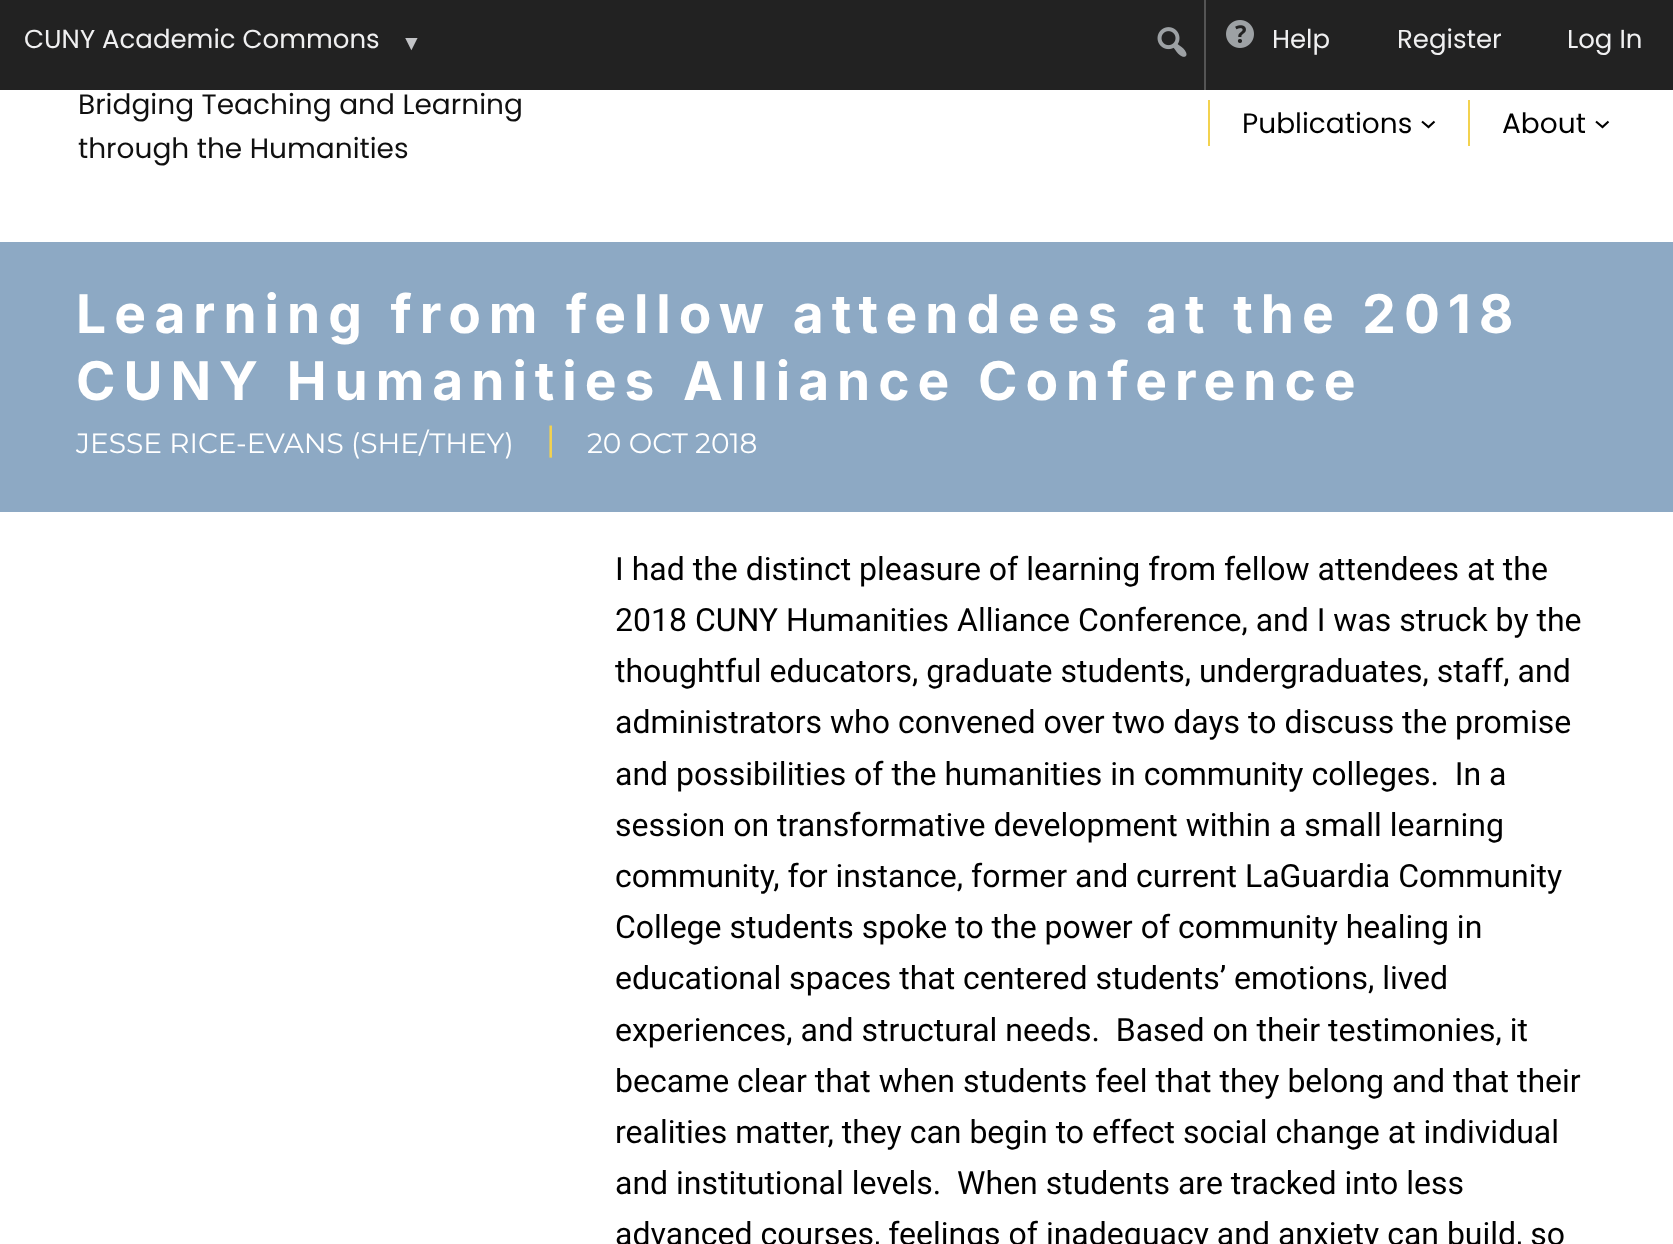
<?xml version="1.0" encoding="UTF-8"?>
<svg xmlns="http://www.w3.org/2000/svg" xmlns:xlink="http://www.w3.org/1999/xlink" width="1673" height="1244">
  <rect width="100%" height="100%" fill="#ffffff" />
  <rect width="1673" height="90" fill="#222222" />
  <image x="1157" y="27" width="30" height="30" xlink:href="image1.png" />
  <rect x="1204" width="2" height="90" fill="#555555" />
  <image x="1226" y="20" width="28" height="28" xlink:href="image2.png" />
  <rect x="1208" y="100" width="2" height="46" fill="#f3d24f" />
  <path d="M 1422 121.5 l 6.5 5.5 l 6 -5.5" fill="none" stroke="#000000" stroke-width="2.1" />
  <rect x="1468" y="100" width="2" height="46" fill="#f3d24f" />
  <path d="M 1596 121.5 l 6.5 5.5 l 6 -5.5" fill="none" stroke="#000000" stroke-width="2.1" />
  <rect y="242" width="1673" height="270" fill="#8da9c4" />
  <text x="24" y="48" style="font-family: Poppins; font-size: 26px; fill: #f0f0f1">CUNY Academic Commons</text>
  <text x="401" y="50" style="font-family: Liberation Sans; font-size: 21px; fill: #c3c4c7">▼</text>
  <text x="1397" y="48" style="font-family: Poppins; font-size: 26px; fill: #f0f0f1">Register</text>
  <text x="1567" y="48" style="font-family: Poppins; font-size: 26px; fill: #f0f0f1">Log In</text>
  <text x="1272" y="48" style="font-family: Poppins; font-size: 26px; fill: #f0f0f1">Help</text>
  <text x="78" y="114" style="font-family: Poppins; font-size: 28px; fill: #101010">Bridging Teaching and Learning</text>
  <text x="78" y="158" style="font-family: Poppins; font-size: 28px; fill: #101010">through the Humanities</text>
  <text x="1242" y="133" style="font-family: Poppins; font-size: 28px; fill: #000000">Publications</text>
  <text x="1502" y="133" style="font-family: Poppins; font-size: 28px; fill: #000000">About</text>
  <text x="76" y="333" style="font-family: Inter; font-size: 53.3px; font-weight: bold; letter-spacing: 8px; fill: #ffffff">Learning from fellow attendees at the 2018</text>
  <text x="76" y="400" style="font-family: Inter; font-size: 53.3px; font-weight: bold; letter-spacing: 8px; fill: #ffffff">CUNY Humanities Alliance Conference</text>
  <text x="76" y="453" style="font-family: Montserrat; font-size: 28px; fill: #ffffff">JESSE RICE-EVANS (SHE/THEY)</text>
  <text x="546" y="454" style="font-family: Poppins; font-size: 36px; font-weight: 300; fill: #f3d24f">|</text>
  <text x="587" y="453" style="font-family: Montserrat; font-size: 28px; fill: #ffffff">20 OCT 2018</text>
  <text x="615" y="580" style="font-family: Roboto; font-size: 32px; fill: #000000">I had the distinct pleasure of learning from fellow attendees at the</text>
  <text x="615" y="631" style="font-family: Roboto; font-size: 32px; fill: #000000">2018 CUNY Humanities Alliance Conference, and I was struck by the</text>
  <text x="615" y="682" style="font-family: Roboto; font-size: 32px; fill: #000000">thoughtful educators, graduate students, undergraduates, staff, and</text>
  <text x="615" y="733" style="font-family: Roboto; font-size: 32px; fill: #000000">administrators who convened over two days to discuss the promise</text>
  <text x="615" y="785" style="font-family: Roboto; font-size: 32px; fill: #000000" xml:space="preserve">and possibilities of the humanities in community colleges.  In a</text>
  <text x="615" y="836" style="font-family: Roboto; font-size: 32px; fill: #000000">session on transformative development within a small learning</text>
  <text x="615" y="887" style="font-family: Roboto; font-size: 32px; fill: #000000">community, for instance, former and current LaGuardia Community</text>
  <text x="615" y="938" style="font-family: Roboto; font-size: 32px; fill: #000000">College students spoke to the power of community healing in</text>
  <text x="615" y="989" style="font-family: Roboto; font-size: 32px; fill: #000000">educational spaces that centered students’ emotions, lived</text>
  <text x="615" y="1041" style="font-family: Roboto; font-size: 32px; fill: #000000" xml:space="preserve">experiences, and structural needs.  Based on their testimonies, it</text>
  <text x="615" y="1092" style="font-family: Roboto; font-size: 32px; fill: #000000">became clear that when students feel that they belong and that their</text>
  <text x="615" y="1143" style="font-family: Roboto; font-size: 32px; fill: #000000">realities matter, they can begin to effect social change at individual</text>
  <text x="615" y="1194" style="font-family: Roboto; font-size: 32px; fill: #000000" xml:space="preserve">and institutional levels.  When students are tracked into less</text>
  <text x="615" y="1245" style="font-family: Roboto; font-size: 32px; fill: #000000">advanced courses, feelings of inadequacy and anxiety can build, so</text>
</svg>
